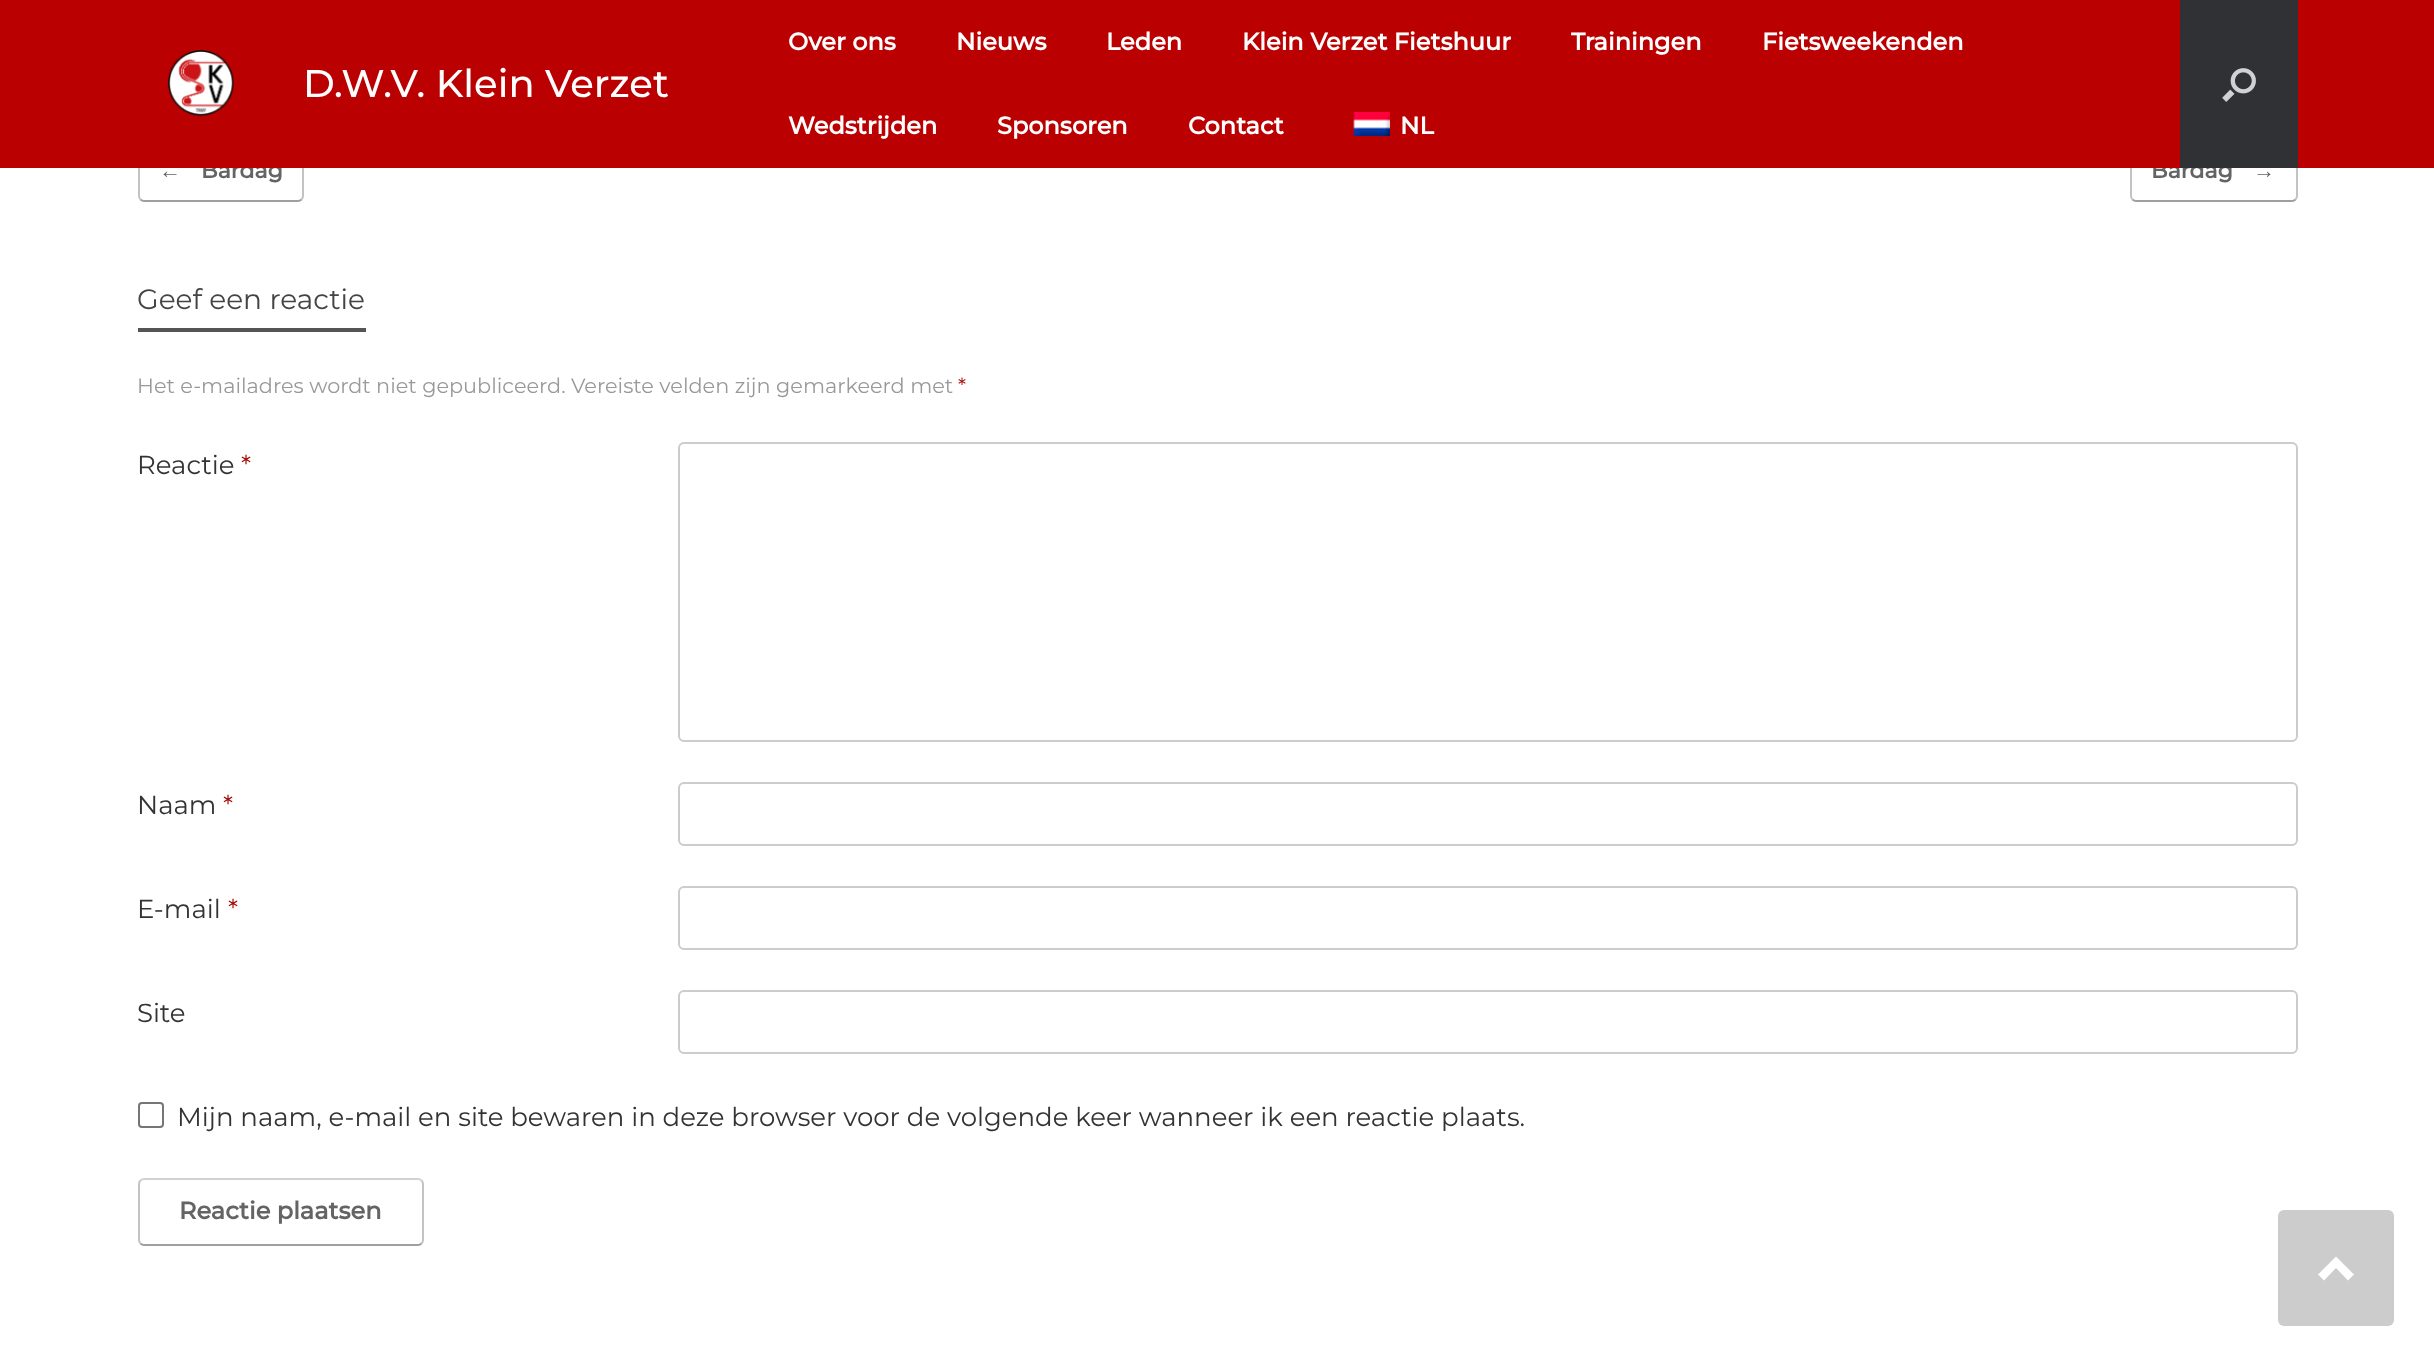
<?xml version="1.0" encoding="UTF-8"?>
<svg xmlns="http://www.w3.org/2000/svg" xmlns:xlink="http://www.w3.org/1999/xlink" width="2434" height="1365">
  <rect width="100%" height="100%" fill="#ffffff" />
  <path d="M 301.5 142.5 c 1 1 1.5 2 1.5 3.5 v 50 c 0 1.5 -0.5 2.5 -1.5 3.5" fill="none" stroke="#c3c3c3" stroke-width="2" />
  <path d="M 301.5 199.5 c -1 1 -2 1.5 -3.5 1.5 h -154 c -1.5 0 -2.5 -0.5 -3.5 -1.5" fill="none" stroke="#9f9f9f" stroke-width="2" />
  <path d="M 140.5 199.5 c -1 -1 -1.5 -2 -1.5 -3.5 v -50 c 0 -1.5 0.5 -2.5 1.5 -3.5" fill="none" stroke="#c3c3c3" stroke-width="2" />
  <path d="M 2295.5 142.5 c 1 1 1.5 2 1.5 3.5 v 50 c 0 1.5 -0.5 2.5 -1.5 3.5" fill="none" stroke="#c3c3c3" stroke-width="2" />
  <path d="M 2295.5 199.5 c -1 1 -2 1.5 -3.5 1.5 h -156 c -1.5 0 -2.5 -0.5 -3.5 -1.5" fill="none" stroke="#9f9f9f" stroke-width="2" />
  <path d="M 2132.5 199.5 c -1 -1 -1.5 -2 -1.5 -3.5 v -50 c 0 -1.5 0.5 -2.5 1.5 -3.5" fill="none" stroke="#c3c3c3" stroke-width="2" />
  <rect x="138" y="328" width="228" height="4" fill="#555555" />
  <rect x="679" y="443" width="1618" height="298" rx="5" fill="none" stroke="#cccccc" stroke-width="2" />
  <rect x="679" y="783" width="1618" height="62" rx="5" fill="none" stroke="#cccccc" stroke-width="2" />
  <rect x="679" y="887" width="1618" height="62" rx="5" fill="none" stroke="#cccccc" stroke-width="2" />
  <rect x="679" y="991" width="1618" height="62" rx="5" fill="none" stroke="#cccccc" stroke-width="2" />
  <rect x="139" y="1103" width="24" height="24" rx="3" fill="none" stroke="#767676" stroke-width="2" />
  <path d="M 140.5 1180.5 c 1 -1 2 -1.5 3.5 -1.5 h 274 c 1.5 0 2.5 0.5 3.5 1.5" fill="none" stroke="#d2d2d2" stroke-width="2" />
  <path d="M 421.5 1180.5 c 1 1 1.5 2 1.5 3.5 v 56 c 0 1.5 -0.5 2.5 -1.5 3.5" fill="none" stroke="#c3c3c3" stroke-width="2" />
  <path d="M 421.5 1243.5 c -1 1 -2 1.5 -3.5 1.5 h -274 c -1.5 0 -2.5 -0.5 -3.5 -1.5" fill="none" stroke="#9f9f9f" stroke-width="2" />
  <path d="M 140.5 1243.5 c -1 -1 -1.5 -2 -1.5 -3.5 v -56 c 0 -1.5 0.5 -2.5 1.5 -3.5" fill="none" stroke="#c3c3c3" stroke-width="2" />
  <rect x="2278" y="1210" width="116" height="116" rx="6" fill="#cccccc" />
  <path d="M 2354 1274.5 l -18 -18 l -18 18 l 6 6 l 12 -12.5 l 12 12.5 z" fill="#ffffff" />
  <text x="159" y="178" style="font-family: Liberation Serif; font-size: 22px; font-weight: bold; fill: #646464">←</text>
  <text x="201" y="178" style="font-family: Montserrat; font-size: 22px; font-weight: bold; fill: #646464">Bardag</text>
  <text x="2151" y="178" style="font-family: Montserrat; font-size: 22px; font-weight: bold; fill: #646464">Bardag</text>
  <rect width="2434" height="168" fill="#ba0000" />
  <rect x="2180" width="118" height="168" fill="#303134" />
  <image x="2222" y="68" width="34" height="34" xlink:href="image3.png" />
  <text x="1400" y="134" style="font-family: Montserrat; font-size: 24px; font-weight: bold; fill: #ffffff">NL</text>
  <image x="1353" y="112" width="37" height="24" xlink:href="image2.png" />
  <text x="1188" y="134" style="font-family: Montserrat; font-size: 24px; font-weight: bold; fill: #ffffff">Contact</text>
  <text x="997" y="134" style="font-family: Montserrat; font-size: 24px; font-weight: bold; fill: #ffffff">Sponsoren</text>
  <text x="788" y="134" style="font-family: Montserrat; font-size: 24px; font-weight: bold; fill: #ffffff">Wedstrijden</text>
  <text x="1762" y="50" style="font-family: Montserrat; font-size: 24px; font-weight: bold; fill: #ffffff">Fietsweekenden</text>
  <text x="1571" y="50" style="font-family: Montserrat; font-size: 24px; font-weight: bold; fill: #ffffff">Trainingen</text>
  <text x="1242" y="50" style="font-family: Montserrat; font-size: 24px; font-weight: bold; fill: #ffffff">Klein Verzet Fietshuur</text>
  <text x="1106" y="50" style="font-family: Montserrat; font-size: 24px; font-weight: bold; fill: #ffffff">Leden</text>
  <text x="956" y="50" style="font-family: Montserrat; font-size: 24px; font-weight: bold; fill: #ffffff">Nieuws</text>
  <text x="788" y="50" style="font-family: Montserrat; font-size: 24px; font-weight: bold; fill: #ffffff">Over ons</text>
  <text x="303" y="97" style="font-family: Montserrat; font-size: 38.5px; font-weight: 500; fill: #ffffff">D.W.V. Klein Verzet</text>
  <image x="167" y="50" width="67" height="67" xlink:href="image1.png" />
  <text x="2253" y="178" style="font-family: Liberation Serif; font-size: 22px; font-weight: bold; fill: #646464">→</text>
  <text x="137" y="309" style="font-family: Montserrat; font-size: 28px; fill: #444444">Geef een reactie</text>
  <text x="137" y="393" style="font-family: Montserrat; font-size: 20.8px; fill: #999999">Het e-mailadres wordt niet gepubliceerd.</text>
  <text x="571" y="393" style="font-family: Montserrat; font-size: 20.8px; fill: #999999">Vereiste velden zijn gemarkeerd met</text>
  <text x="958" y="393" style="font-family: Montserrat; font-size: 20.8px; fill: #a40802">*</text>
  <text x="137" y="474" style="font-family: Montserrat; font-size: 26px; fill: #333333">Reactie</text>
  <text x="241" y="474" style="font-family: Montserrat; font-size: 26px; fill: #a40802">*</text>
  <text x="137" y="814" style="font-family: Montserrat; font-size: 26px; fill: #333333">Naam</text>
  <text x="223" y="814" style="font-family: Montserrat; font-size: 26px; fill: #a40802">*</text>
  <text x="137" y="918" style="font-family: Montserrat; font-size: 26px; fill: #333333">E-mail</text>
  <text x="228" y="918" style="font-family: Montserrat; font-size: 26px; fill: #a40802">*</text>
  <text x="137" y="1022" style="font-family: Montserrat; font-size: 26px; fill: #333333">Site</text>
  <text x="177" y="1126" style="font-family: Montserrat; font-size: 26px; fill: #333333">Mijn naam, e-mail en site bewaren in deze browser voor de volgende keer wanneer ik een reactie plaats.</text>
  <text x="179" y="1219" style="font-family: Montserrat; font-size: 24px; font-weight: bold; fill: #646464">Reactie plaatsen</text>
</svg>
